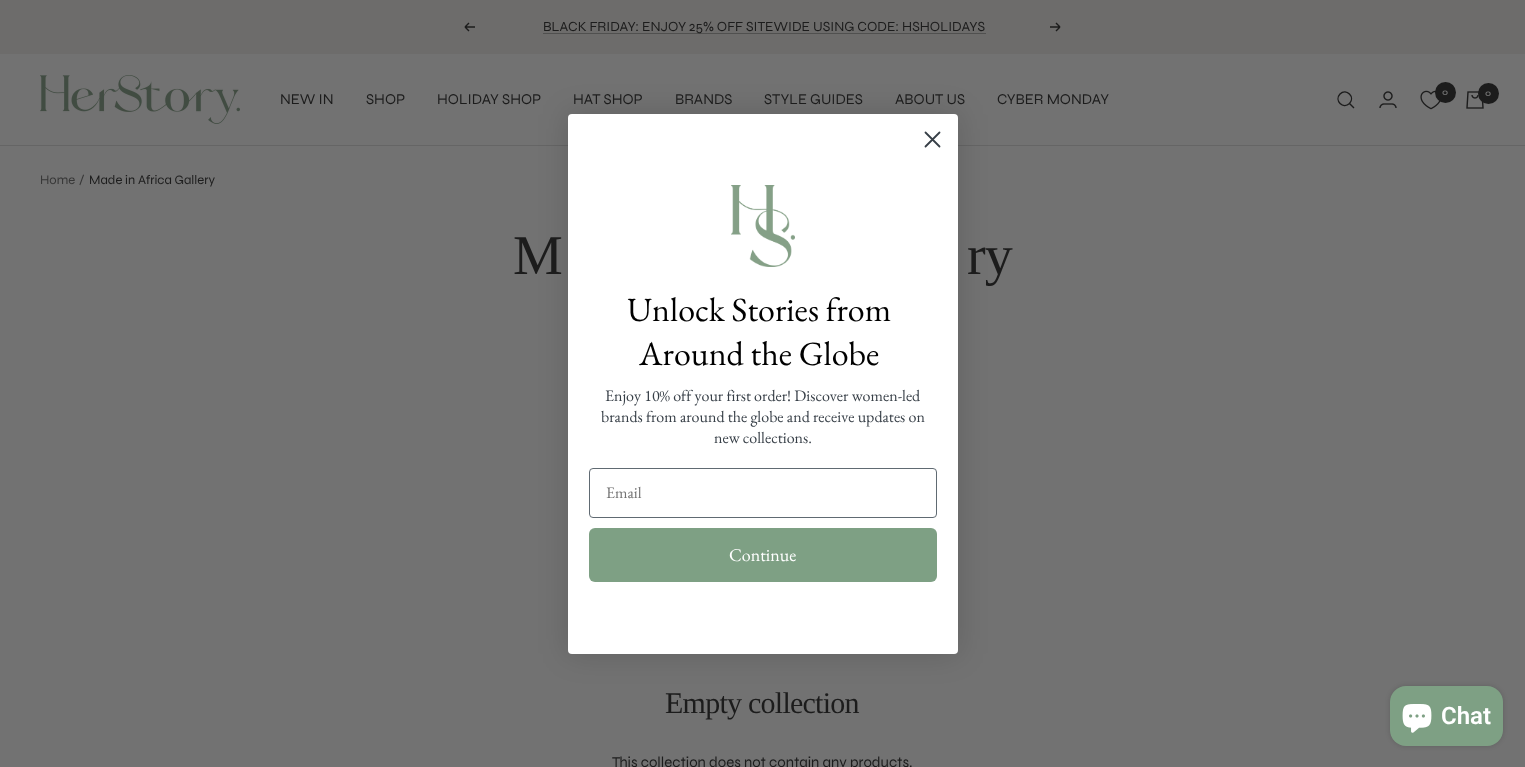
<?xml version="1.0" encoding="UTF-8"?>
<svg xmlns="http://www.w3.org/2000/svg" xmlns:xlink="http://www.w3.org/1999/xlink" width="1525" height="767">
  <rect width="100%" height="100%" fill="#727272" />
  <rect width="1525" height="54" fill="#6d6c6b" />
  <path d="M 475 27 h -10 m 0 0 l 4 4 m -4 -4 l 4 -4" fill="none" stroke="#1c1c1c" stroke-width="1.4" />
  <rect x="543" y="33" width="443" height="1" fill="#50504f" />
  <path d="M 1050 27 h 10 m 0 0 l -4 4 m 4 -4 l -4 -4" fill="none" stroke="#1c1c1c" stroke-width="1.4" />
  <rect y="145" width="1525" height="1" fill="#656565" />
  <image x="40" y="75" width="200" height="49" xlink:href="image1.png" />
  <path d="M 1349.5 103.5 c 6 -6.5 -3 -15.5 -9.5 -9.5 c -6 6.5 3 15.5 9.5 9.5 z m 0 0 l 4.5 4.5" fill="none" stroke="#1c1c1c" stroke-width="1.4" />
  <image x="1379" y="91" width="18" height="17" xlink:href="image2.png" />
  <image x="1420" y="90" width="21" height="20" xlink:href="image3.png" />
  <circle cx="1445.5" cy="92.5" r="10.5" fill="#1c1c1c" />
  <image x="1466" y="91" width="18" height="18" xlink:href="image4.png" />
  <circle cx="1488.5" cy="93.5" r="10.5" fill="#1c1c1c" />
  <rect x="568" y="114" width="390" height="540" rx="4" fill="#000000" fill-opacity="0.15" filter="blur(15px)" />
  <rect x="568" y="114" width="390" height="540" rx="4" fill="#ffffff" />
  <path d="M 925.5 132.5 l 14 14 m -14 0 l 14 -14 z" fill="none" stroke="#373f47" stroke-width="1.8" stroke-linecap="round" stroke-linejoin="round" />
  <image x="731" y="185" width="64" height="82" xlink:href="image5.png" />
  <rect x="589.5" y="468.5" width="347" height="49" rx="3.5" fill="none" stroke="#606a72" />
  <rect x="589" y="528" width="348" height="54" rx="6" fill="#7ea084" />
  <rect x="1390" y="686" width="113" height="60" rx="16" fill="#000000" fill-opacity="0.15" filter="blur(2.5px)" />
  <rect x="1390" y="686" width="113" height="60" rx="16" fill="#7ea084" />
  <image x="1402" y="704" width="30" height="29" xlink:href="image6.png" />
  <text x="543" y="31" style="font-family: Syne; font-size: 14px; fill: #1c1c1c">BLACK FRIDAY: ENJOY 25% OFF SITEWIDE USING CODE: HSHOLIDAYS</text>
  <text x="280" y="104" style="font-family: Syne; font-size: 15px; fill: #1c1c1c">NEW IN</text>
  <text x="366" y="104" style="font-family: Syne; font-size: 15px; fill: #1c1c1c">SHOP</text>
  <text x="437" y="104" style="font-family: Syne; font-size: 15px; fill: #1c1c1c">HOLIDAY SHOP</text>
  <text x="573" y="104" style="font-family: Syne; font-size: 15px; fill: #1c1c1c">HAT SHOP</text>
  <text x="675" y="104" style="font-family: Syne; font-size: 15px; fill: #1c1c1c">BRANDS</text>
  <text x="764" y="104" style="font-family: Syne; font-size: 15px; fill: #1c1c1c">STYLE GUIDES</text>
  <text x="895" y="104" style="font-family: Syne; font-size: 15px; fill: #1c1c1c">ABOUT US</text>
  <text x="997" y="104" style="font-family: Syne; font-size: 15px; fill: #1c1c1c">CYBER MONDAY</text>
  <text x="1442" y="95" style="font-family: Syne; font-size: 9px; font-weight: 600; fill: #727272">0</text>
  <text x="1485" y="96" style="font-family: Syne; font-size: 9px; font-weight: 600; fill: #727272">0</text>
  <text x="40" y="184" style="font-family: Syne; font-size: 13px; fill: #363636">Home</text>
  <text x="79" y="184" style="font-family: Syne; font-size: 13px; fill: #363636">/</text>
  <text x="89" y="184" style="font-family: Syne; font-size: 13px; fill: #1c1c1c">Made in Africa Gallery</text>
  <text x="513" y="274" style="font-family: Liberation Serif; font-size: 56px; letter-spacing: -1px; fill: #1c1c1c">M</text>
  <text x="967" y="274" style="font-family: Liberation Serif; font-size: 56px; letter-spacing: -1px; fill: #1c1c1c">ry</text>
  <text x="665" y="713" style="font-family: Liberation Serif; font-size: 30px; letter-spacing: -0.75px; fill: #1c1c1c">Empty collection</text>
  <text x="612" y="767" style="font-family: Syne; font-size: 15px; fill: #1c1c1c">This collection does not contain any products.</text>
  <text x="627" y="321" style="font-family: EB Garamond; font-size: 34px; fill: #000000">Unlock Stories from</text>
  <text x="639" y="365" style="font-family: EB Garamond; font-size: 34px; fill: #000000">Around the Globe</text>
  <text x="605" y="401" style="font-family: EB Garamond; font-size: 16px; fill: #373f47">Enjoy 10% off your first order! Discover women-led</text>
  <text x="601" y="422" style="font-family: EB Garamond; font-size: 16px; fill: #373f47">brands from around the globe and receive updates on</text>
  <text x="714" y="443" style="font-family: EB Garamond; font-size: 16px; fill: #373f47">new collections.</text>
  <text x="606" y="498" style="font-family: EB Garamond; font-size: 16px; fill: #727272">Email</text>
  <text x="729" y="561" style="font-family: EB Garamond; font-size: 18px; fill: #ffffff">Continue</text>
  <text x="1441" y="724" style="font-family: Roboto; font-size: 24px; font-weight: 600; fill: #ffffff">Chat</text>
</svg>
